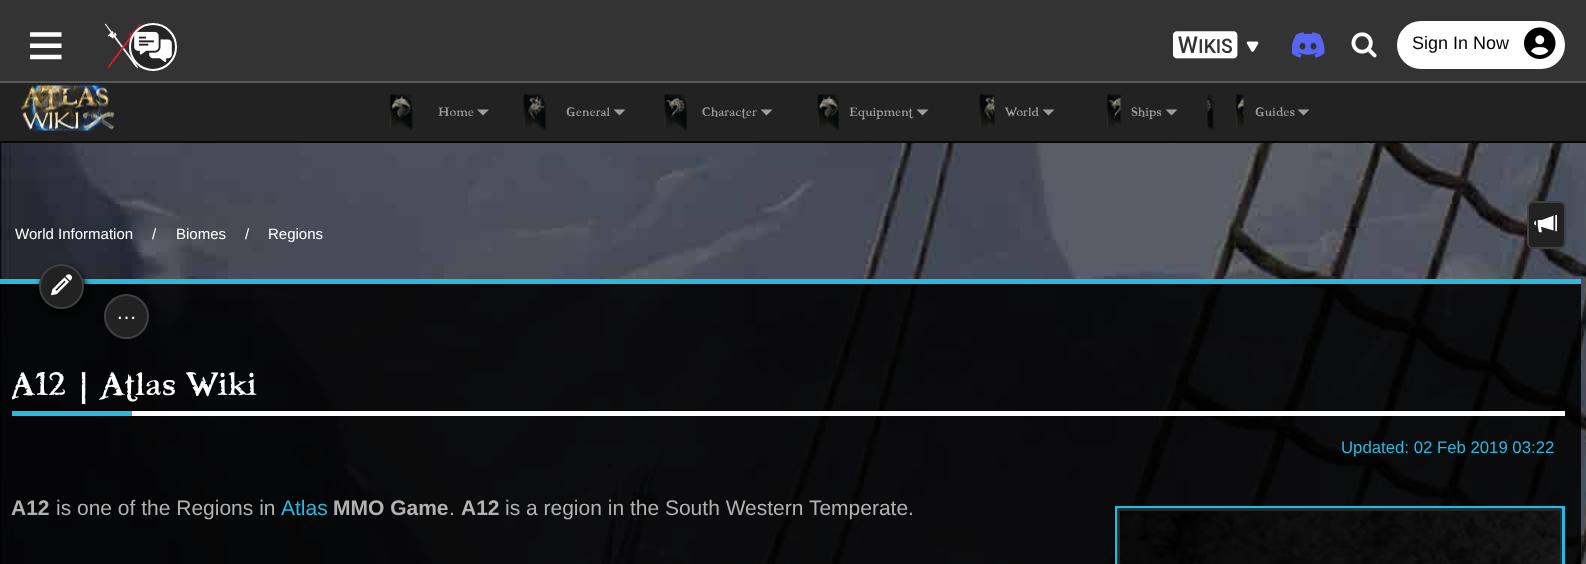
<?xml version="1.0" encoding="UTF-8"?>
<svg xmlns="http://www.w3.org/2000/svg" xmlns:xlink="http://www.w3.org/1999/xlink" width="1586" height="564">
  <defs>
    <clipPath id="clip1"><rect x="12" y="329" width="1559" height="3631" /></clipPath>
  </defs>
  <rect width="100%" height="100%" fill="#ffffff" />
  <rect width="1586" height="81" fill="#333333" />
  <rect y="81" width="1586" height="2" fill="#595959" />
  <image x="30" y="32" width="32" height="28" xlink:href="image1.png" />
  <image x="105" y="23" width="36" height="46" xlink:href="image2.png" />
  <circle cx="153" cy="47" r="23" fill="#242424" stroke="#ffffff" stroke-width="2" />
  <image x="134" y="31" width="38" height="31" xlink:href="image3.png" />
  <image x="1172" y="31" width="87" height="28" xlink:href="image4.png" />
  <image x="1292" y="32" width="33" height="26" xlink:href="image5.png" />
  <image x="1351" y="32" width="26" height="26" xlink:href="image6.png" />
  <rect x="1397" y="21" width="168" height="48" rx="24" fill="#ffffff" />
  <image x="1524" y="27" width="32" height="32" xlink:href="image7.png" />
  <rect y="83" width="1586" height="58" fill="#222222" />
  <rect y="141" width="1586" height="2" fill="#080808" />
  <image x="21" y="85" width="94" height="46" xlink:href="image8.png" />
  <image x="390" y="94" width="23" height="37" xlink:href="image9.png" />
  <path d="M 477 109.5 h 12 l -6 6 z" fill="#9d9d9d" />
  <image x="523" y="94" width="23" height="37" xlink:href="image10.png" />
  <path d="M 613.5 109.5 h 12 l -6 6 z" fill="#9d9d9d" />
  <image x="664" y="94" width="23" height="37" xlink:href="image11.png" />
  <path d="M 760.5 109.5 h 12 l -6 6 z" fill="#9d9d9d" />
  <image x="817" y="94" width="22" height="36" xlink:href="image12.png" />
  <path d="M 916.5 109.5 h 12 l -6 6 z" fill="#9d9d9d" />
  <image x="979" y="94" width="16" height="35" xlink:href="image13.png" />
  <path d="M 1042.5 109.5 h 12 l -6 6 z" fill="#9d9d9d" />
  <image x="1107" y="94" width="14" height="35" xlink:href="image14.png" />
  <path d="M 1165.5 109.5 h 12 l -6 6 z" fill="#9d9d9d" />
  <image x="1207" y="94" width="37" height="37" xlink:href="image15.png" />
  <path d="M 1297.5 109.5 h 12 l -6 6 z" fill="#9d9d9d" />
  <image x="0" y="143" width="1586" height="421" xlink:href="image16.png" />
  <rect x="1528" y="202" width="37" height="46" rx="5" fill="#222222" stroke="#404040" stroke-width="2" />
  <image x="1534" y="214" width="23" height="19" xlink:href="image17.png" />
  <rect y="284" width="1581" height="280" fill="#000000" fill-opacity="0.85" />
  <rect y="279" width="1581" height="5" fill="#27b9df" />
  <rect x="41" y="267" width="45" height="45" rx="22.5" fill="#000000" filter="blur(3px)" />
  <circle cx="61.5" cy="286.5" r="21.5" fill="#222222" stroke="#404040" stroke-width="2" />
  <image x="51" y="274" width="21" height="22" xlink:href="image18.png" />
  <circle cx="126.5" cy="316.5" r="21.5" fill="#222222" stroke="#404040" stroke-width="2" />
  <rect x="132" y="411" width="1433" height="5" fill="#ffffff" />
  <rect x="12" y="411" width="120" height="5" fill="#27b9df" />
  <rect x="1116.5" y="507.5" width="447" height="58" fill="none" stroke="#27b9df" stroke-width="3" />
  <image x="1117" y="508" width="445" height="56" xlink:href="image19.png" />
  <rect x="1119" y="510" width="442" height="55" fill="none" stroke="#282828" stroke-width="2" />
  <text x="1412" y="49" style="font-family: Liberation Sans; font-size: 18px; fill: #000000">Sign In Now</text>
  <text x="438" y="116" style="font-family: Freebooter; font-size: 18px; fill: #9d9d9d">Home</text>
  <text x="566" y="116" style="font-family: Freebooter; font-size: 18px; fill: #9d9d9d">General</text>
  <text x="702" y="116" style="font-family: Freebooter; font-size: 18px; fill: #9d9d9d">Character</text>
  <text x="849" y="116" style="font-family: Freebooter; font-size: 18px; fill: #9d9d9d">Equipment</text>
  <text x="1005" y="116" style="font-family: Freebooter; font-size: 18px; fill: #9d9d9d">World</text>
  <text x="1131" y="116" style="font-family: Freebooter; font-size: 18px; fill: #9d9d9d">Ships</text>
  <text x="1255" y="116" style="font-family: Freebooter; font-size: 18px; fill: #9d9d9d">Guides</text>
  <text x="15" y="239" style="font-family: Liberation Sans; font-size: 15px; fill: #ffffff">World Information</text>
  <text x="152" y="239" style="font-family: Liberation Sans; font-size: 15px; fill: #ffffff">/</text>
  <text x="176" y="239" style="font-family: Liberation Sans; font-size: 15px; fill: #ffffff">Biomes</text>
  <text x="245" y="239" style="font-family: Liberation Sans; font-size: 15px; fill: #ffffff">/</text>
  <text x="268" y="239" style="font-family: Liberation Sans; font-size: 15px; fill: #ffffff">Regions</text>
  <text x="116" y="319" style="font-family: Liberation Sans; font-size: 21px; fill: #ffffff">…</text>
  <g clip-path="url(#clip1)">
    <text x="11" y="395" style="font-family: Freebooter; font-size: 48px; fill: #ffffff">A12 | Atlas Wiki</text>
  </g>
  <text x="1341" y="453" style="font-family: Liberation Sans; font-size: 16.75px; fill: #27b9df">Updated: 02 Feb 2019 03:22</text>
  <text x="11" y="515" style="font-family: Liberation Sans; font-size: 21px; font-weight: bold; fill: #b4b2b0">A12</text>
  <text x="56" y="515" style="font-family: Liberation Sans; font-size: 21px; fill: #b4b2b0">is one of the Regions in</text>
  <text x="281" y="515" style="font-family: Liberation Sans; font-size: 21px; fill: #27b9df">Atlas</text>
  <text x="333" y="515" style="font-family: Liberation Sans; font-size: 21px; font-weight: bold; fill: #b4b2b0">MMO Game</text>
  <text x="449" y="515" style="font-family: Liberation Sans; font-size: 21px; fill: #b4b2b0">.</text>
  <text x="461" y="515" style="font-family: Liberation Sans; font-size: 21px; font-weight: bold; fill: #b4b2b0">A12</text>
  <text x="505" y="515" style="font-family: Liberation Sans; font-size: 21px; fill: #b4b2b0">is a region in the South Western Temperate.</text>
</svg>
